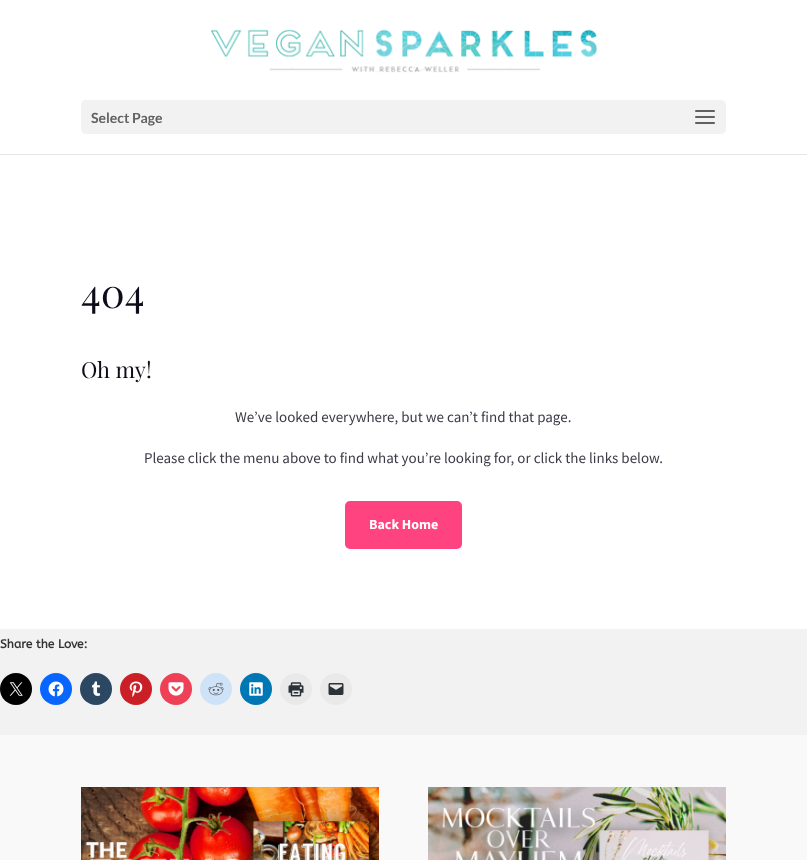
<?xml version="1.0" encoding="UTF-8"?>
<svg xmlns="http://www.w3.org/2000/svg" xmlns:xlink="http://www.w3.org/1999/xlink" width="807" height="860">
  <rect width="100%" height="100%" fill="#f2f2f2" />
  <rect y="154" width="807" height="1" fill="#e6e6e6" />
  <rect width="807" height="154" fill="#ffffff" />
  <image x="211" y="29" width="387" height="44" xlink:href="image1.png" />
  <rect x="81" y="100" width="645" height="34" rx="5" fill="#f2f2f2" />
  <image x="695" y="110" width="20" height="14" xlink:href="image2.png" />
  <rect y="155" width="807" height="474" fill="#ffffff" />
  <rect x="345" y="501" width="117" height="48" rx="5" fill="#ff4381" />
  <circle cx="16" cy="689" r="16" fill="#000000" />
  <image x="9" y="682" width="14" height="14" xlink:href="image3.png" />
  <circle cx="56" cy="689" r="16" fill="#0866ff" />
  <image x="48" y="681" width="16" height="16" xlink:href="image4.png" />
  <circle cx="96" cy="689" r="16" fill="#2c4762" />
  <image x="91" y="681" width="10" height="15" xlink:href="image5.png" />
  <circle cx="136" cy="689" r="16" fill="#ca1f27" />
  <image x="129" y="681" width="14" height="16" xlink:href="image6.png" />
  <circle cx="176" cy="689" r="16" fill="#ee4056" />
  <image x="168" y="682" width="16" height="14" xlink:href="image7.png" />
  <circle cx="216" cy="689" r="16" fill="#cee3f8" />
  <image x="208" y="682" width="16" height="14" xlink:href="image8.png" />
  <circle cx="256" cy="689" r="16" fill="#0077b5" />
  <image x="249" y="682" width="14" height="14" xlink:href="image9.png" />
  <circle cx="296" cy="689" r="16" fill="#e9e9e9" />
  <image x="288" y="682" width="16" height="15" xlink:href="image10.png" />
  <circle cx="336" cy="689" r="16" fill="#e9e9e9" />
  <image x="328" y="683" width="16" height="12" xlink:href="image11.png" />
  <rect y="735" width="807" height="125" fill="#f9f9f9" />
  <image x="81" y="787" width="298" height="73" xlink:href="image12.png" />
  <image x="428" y="787" width="298" height="73" xlink:href="image13.png" />
  <text x="91" y="123" style="font-family: Lato; font-size: 14px; font-weight: bold; fill: #616161">Select Page</text>
  <text x="81" y="308" style="font-family: Playfair Display; font-size: 40px; fill: #0e0c19">404</text>
  <text x="81" y="378" style="font-family: Playfair Display; font-size: 22px; fill: #0e0c19">Oh my!</text>
  <text x="235" y="422" style="font-family: Source Sans Pro; font-size: 15px; fill: #3c3a47">We’ve looked everywhere, but we can’t find that page.</text>
  <text x="144" y="463" style="font-family: Source Sans Pro; font-size: 15px; fill: #3c3a47">Please click the menu above to find what you’re looking for, or click the links below.</text>
  <text x="369" y="529" style="font-family: Source Sans Pro; font-size: 14px; font-weight: bold; fill: #ffffff">Back Home</text>
  <text x="0" y="648" style="font-family: ABeeZee; font-size: 12px; font-weight: bold; fill: #333333">Share the Love:</text>
</svg>
